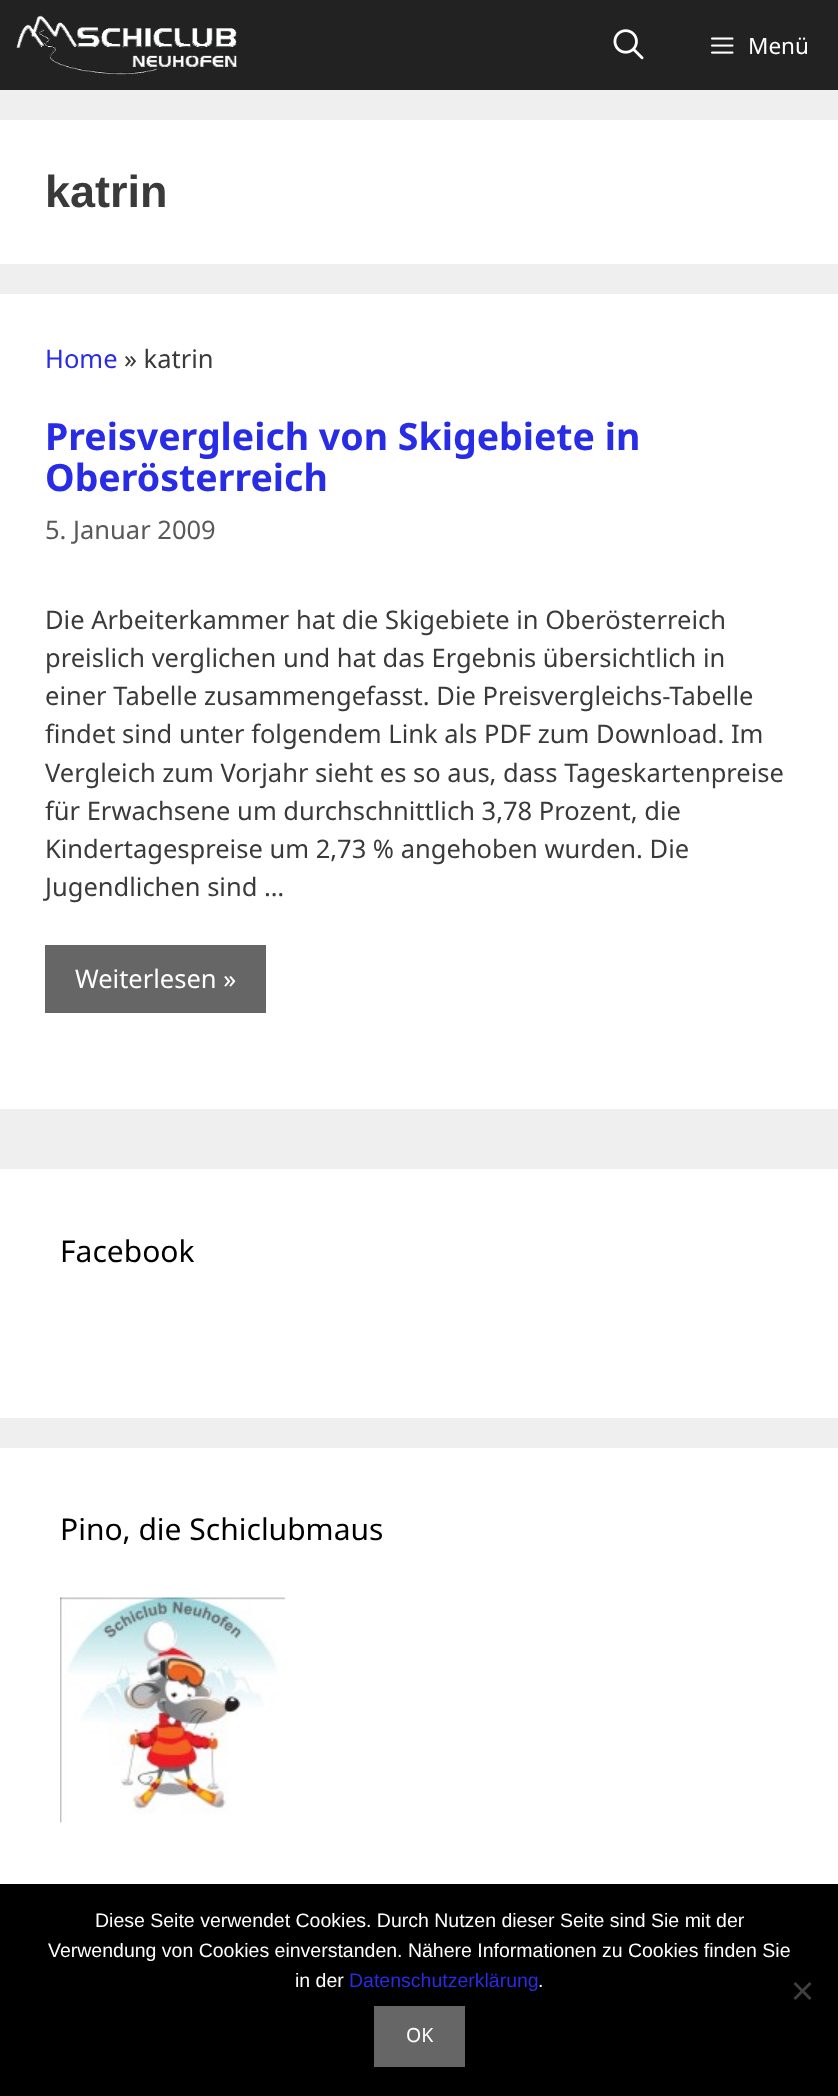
<?xml version="1.0" encoding="UTF-8"?>
<svg xmlns="http://www.w3.org/2000/svg" xmlns:xlink="http://www.w3.org/1999/xlink" width="838" height="2096">
  <rect width="100%" height="100%" fill="#efefef" />
  <rect width="838" height="90" fill="#222222" />
  <image x="16" y="15" width="221" height="60" xlink:href="image1.png" />
  <image x="613" y="29" width="31" height="31" xlink:href="image2.png" />
  <image x="711" y="37" width="23" height="17" xlink:href="image3.png" />
  <rect y="120" width="838" height="144" fill="#ffffff" />
  <rect y="294" width="838" height="815" fill="#ffffff" />
  <rect x="45" y="945" width="221" height="68" fill="#666666" />
  <rect y="1169" width="838" height="249" fill="#ffffff" />
  <rect y="1448" width="838" height="436" fill="#ffffff" />
  <image x="60" y="1597" width="225" height="226" xlink:href="image4.png" />
  <rect y="1884" width="838" height="212" fill="#000000" />
  <path d="M 809.5 1982 l 2 2 l -16 16 l -2 -2 z" fill="#404040" />
  <path d="M 793.5 1984 l 2 -2 l 16 16 l -2 2 z" fill="#404040" />
  <rect x="374" y="2006" width="91" height="61" fill="#666666" />
  <text x="748" y="54" style="font-family: Noto Sans; font-size: 22.5px; fill: #ffffff">Menü</text>
  <text x="45" y="207" style="font-family: Liberation Sans; font-size: 45px; font-weight: bold; fill: #3a3a3a">katrin</text>
  <text x="45" y="368" style="font-family: Noto Sans; font-size: 25.5px; fill: #292ce5">Home</text>
  <text x="124" y="368" style="font-family: Noto Sans; font-size: 25.5px; fill: #3a3a3a">» katrin</text>
  <text x="45" y="450" style="font-family: Noto Sans; font-size: 37.5px; font-weight: bold; fill: #292ce5">Preisvergleich von Skigebiete in</text>
  <text x="45" y="491" style="font-family: Noto Sans; font-size: 37.5px; font-weight: bold; fill: #292ce5">Oberösterreich</text>
  <text x="45" y="539" style="font-family: Noto Sans; font-size: 25.5px; fill: #595959">5. Januar 2009</text>
  <text x="45" y="629" style="font-family: Noto Sans; font-size: 25.5px; fill: #3a3a3a">Die Arbeiterkammer hat die Skigebiete in Oberösterreich</text>
  <text x="45" y="667" style="font-family: Noto Sans; font-size: 25.5px; fill: #3a3a3a">preislich verglichen und hat das Ergebnis übersichtlich in</text>
  <text x="45" y="705" style="font-family: Noto Sans; font-size: 25.5px; fill: #3a3a3a">einer Tabelle zusammengefasst. Die Preisvergleichs-Tabelle</text>
  <text x="45" y="743" style="font-family: Noto Sans; font-size: 25.5px; fill: #3a3a3a">findet sind unter folgendem Link als PDF zum Download. Im</text>
  <text x="45" y="782" style="font-family: Noto Sans; font-size: 25.5px; fill: #3a3a3a">Vergleich zum Vorjahr sieht es so aus, dass Tageskartenpreise</text>
  <text x="45" y="820" style="font-family: Noto Sans; font-size: 25.5px; fill: #3a3a3a">für Erwachsene um durchschnittlich 3,78 Prozent, die</text>
  <text x="45" y="858" style="font-family: Noto Sans; font-size: 25.5px; fill: #3a3a3a">Kindertagespreise um 2,73 % angehoben wurden. Die</text>
  <text x="45" y="896" style="font-family: Noto Sans; font-size: 25.5px; fill: #3a3a3a">Jugendlichen sind …</text>
  <text x="75" y="988" style="font-family: Noto Sans; font-size: 25.5px; fill: #ffffff">Weiterlesen »</text>
  <text x="60" y="1262" style="font-family: Noto Sans; font-size: 30px; fill: #000000">Facebook</text>
  <text x="60" y="1540" style="font-family: Noto Sans; font-size: 30px; fill: #000000">Pino, die Schiclubmaus</text>
  <text x="95" y="1927" style="font-family: Liberation Sans; font-size: 19.5px; fill: #ffffff">Diese Seite verwendet Cookies. Durch Nutzen dieser Seite sind Sie mit der</text>
  <text x="48" y="1957" style="font-family: Liberation Sans; font-size: 19.5px; fill: #ffffff">Verwendung von Cookies einverstanden. Nähere Informationen zu Cookies finden Sie</text>
  <text x="295" y="1987" style="font-family: Liberation Sans; font-size: 19.5px; fill: #ffffff">in der</text>
  <text x="349" y="1987" style="font-family: Liberation Sans; font-size: 19.5px; fill: #292ce5">Datenschutzerklärung</text>
  <text x="538" y="1987" style="font-family: Liberation Sans; font-size: 19.5px; fill: #ffffff">.</text>
  <text x="406" y="2042" style="font-family: Noto Sans; font-size: 19.5px; fill: #ffffff">OK</text>
</svg>
